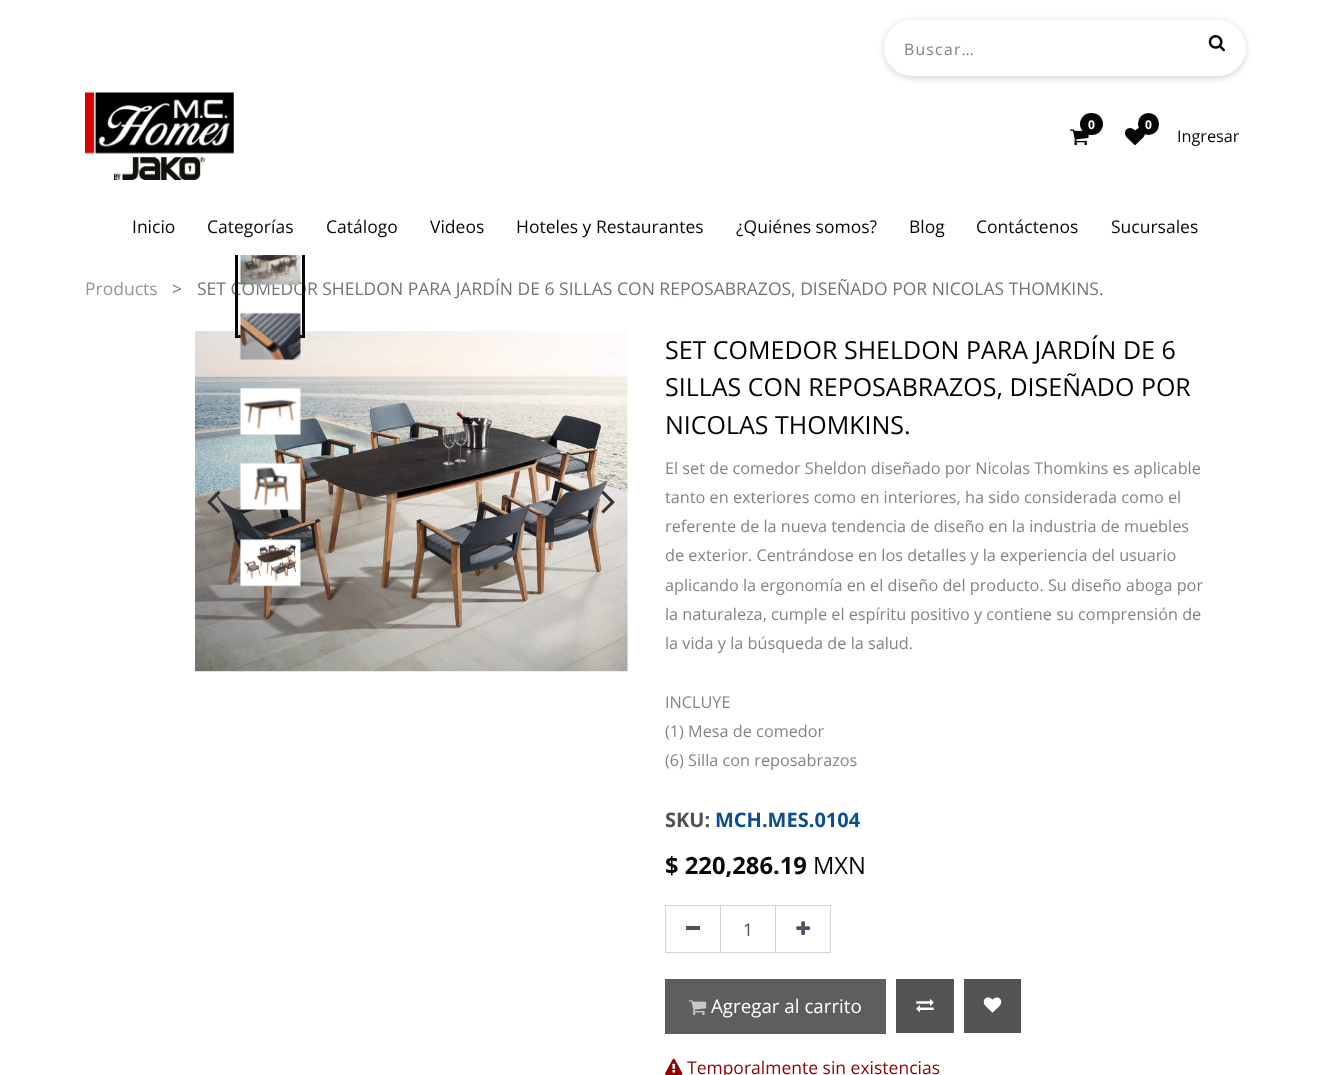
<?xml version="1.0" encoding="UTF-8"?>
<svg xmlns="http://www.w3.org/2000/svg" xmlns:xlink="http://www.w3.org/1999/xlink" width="1329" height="1075">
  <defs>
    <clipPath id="clip1"><path d="M 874 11 h 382 v 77 h -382 z m 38 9 h 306 c 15.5 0 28 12.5 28 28 c 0 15.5 -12.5 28 -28 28 h -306 c -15.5 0 -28 -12.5 -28 -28 c 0 -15.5 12.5 -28 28 -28 z" clip-rule="evenodd" /></clipPath>
  </defs>
  <rect width="100%" height="100%" fill="#ffffff" />
  <g clip-path="url(#clip1)">
    <rect x="884" y="21" width="362" height="57" rx="28.5" fill="#202124" fill-opacity="0.2" filter="blur(3px)" />
  </g>
  <image x="1208" y="35" width="17" height="17" xlink:href="image1.png" />
  <image x="85" y="92" width="149" height="88" xlink:href="image2.png" />
  <image x="1070" y="129" width="19" height="17" xlink:href="image3.png" />
  <rect x="1080" y="113" width="23" height="22" rx="11" fill="#080707" />
  <image x="1125" y="128" width="20" height="18" xlink:href="image4.png" />
  <rect x="1138" y="113" width="21" height="22" rx="10.5" fill="#080707" />
  <image x="195" y="331" width="433" height="341" xlink:href="image10.png" />
  <image x="239" y="387" width="62" height="49" xlink:href="image7.png" />
  <image x="239" y="462" width="62" height="49" xlink:href="image8.png" />
  <image x="240" y="539" width="61" height="48" xlink:href="image9.png" />
  <image x="207" y="491" width="14" height="23" xlink:href="image11.png" />
  <image x="601" y="491" width="14" height="23" xlink:href="image12.png" />
  <rect x="665.5" y="905.5" width="55" height="47" fill="none" stroke="#ced4da" />
  <rect x="686" y="926" width="14" height="4" fill="#4c5462" />
  <rect x="720.5" y="905.5" width="55" height="47" fill="none" stroke="#ced4da" />
  <rect x="775.5" y="905.5" width="55" height="47" fill="none" stroke="#ced4da" />
  <image x="796" y="921" width="14" height="14" xlink:href="image13.png" />
  <rect x="665" y="979" width="221" height="55" fill="#5e5e5e" />
  <image x="688" y="1000" width="19" height="15" xlink:href="image14.png" />
  <rect x="896" y="979" width="58" height="54" fill="#545454" />
  <image x="916" y="999" width="18" height="14" xlink:href="image15.png" />
  <rect x="964" y="979" width="57" height="54" fill="#545454" />
  <image x="983" y="997" width="19" height="16" xlink:href="image16.png" />
  <image x="665" y="1058" width="18" height="17" xlink:href="image17.png" />
  <text x="904" y="55" style="font-family: Open Sans; font-size: 15.75px; letter-spacing: 1.25px; fill: #848484">Buscar…</text>
  <text x="1088" y="129" style="font-family: Open Sans; font-size: 12px; font-weight: bold; fill: #ffffff">0</text>
  <text x="1145" y="129" style="font-family: Open Sans; font-size: 12px; font-weight: bold; fill: #ffffff">0</text>
  <text x="1177" y="142" style="font-family: Open Sans; font-size: 16.25px; fill: #080808">Ingresar</text>
  <text x="132" y="233" style="font-family: Open Sans; font-size: 17.5px; fill: #080808">Inicio</text>
  <text x="326" y="233" style="font-family: Open Sans; font-size: 17.5px; fill: #080808">Catálogo</text>
  <text x="430" y="233" style="font-family: Open Sans; font-size: 17.5px; fill: #080808">Videos</text>
  <text x="516" y="233" style="font-family: Open Sans; font-size: 17.5px; fill: #080808">Hoteles y Restaurantes</text>
  <text x="736" y="233" style="font-family: Open Sans; font-size: 17.5px; fill: #080808">¿Quiénes somos?</text>
  <text x="909" y="233" style="font-family: Open Sans; font-size: 17.5px; fill: #080808">Blog</text>
  <text x="976" y="233" style="font-family: Open Sans; font-size: 17.5px; fill: #080808">Contáctenos</text>
  <text x="1111" y="233" style="font-family: Open Sans; font-size: 17.5px; fill: #080808">Sucursales</text>
  <text x="85" y="295" style="font-family: Open Sans; font-size: 17.5px; fill: #969696">Products</text>
  <text x="172" y="295" style="font-family: Open Sans; font-size: 17.5px; fill: #6c757d">&gt;</text>
  <text x="197" y="295" style="font-family: Open Sans; font-size: 17.5px; fill: #6c757d">SET COMEDOR SHELDON PARA JARDÍN DE 6 SILLAS CON REPOSABRAZOS, DISEÑADO POR NICOLAS THOMKINS.</text>
  <path d="M 305 226 v 112 h -70 v -112 h 3 v 109 h 64 v -109 z" fill="#080707" />
  <rect x="235" y="226" width="70" height="29" fill="#ffffff" />
  <text x="207" y="233" style="font-family: Open Sans; font-size: 17.5px; fill: #080808">Categorías</text>
  <image x="239" y="255" width="62" height="31" xlink:href="image5.png" />
  <image x="239" y="312" width="62" height="49" xlink:href="image6.png" />
  <text x="665" y="359" style="font-family: Open Sans; font-size: 25px; fill: #000000">SET COMEDOR SHELDON PARA JARDÍN DE 6</text>
  <text x="665" y="396" style="font-family: Open Sans; font-size: 25px; fill: #000000">SILLAS CON REPOSABRAZOS, DISEÑADO POR</text>
  <text x="665" y="434" style="font-family: Open Sans; font-size: 25px; fill: #000000">NICOLAS THOMKINS.</text>
  <text x="665" y="474" style="font-family: Open Sans; font-size: 16.25px; fill: #848484">El set de comedor Sheldon diseñado por Nicolas Thomkins es aplicable</text>
  <text x="665" y="503" style="font-family: Open Sans; font-size: 16.25px; fill: #848484">tanto en exteriores como en interiores, ha sido considerada como el</text>
  <text x="665" y="532" style="font-family: Open Sans; font-size: 16.25px; fill: #848484">referente de la nueva tendencia de diseño en la industria de muebles</text>
  <text x="665" y="561" style="font-family: Open Sans; font-size: 16.25px; fill: #848484">de exterior. Centrándose en los detalles y la experiencia del usuario</text>
  <text x="665" y="591" style="font-family: Open Sans; font-size: 16.25px; fill: #848484">aplicando la ergonomía en el diseño del producto. Su diseño aboga por</text>
  <text x="665" y="620" style="font-family: Open Sans; font-size: 16.25px; fill: #848484">la naturaleza, cumple el espíritu positivo y contiene su comprensión de</text>
  <text x="665" y="649" style="font-family: Open Sans; font-size: 16.25px; fill: #848484">la vida y la búsqueda de la salud.</text>
  <text x="665" y="708" style="font-family: Open Sans; font-size: 16.25px; fill: #848484">INCLUYE</text>
  <text x="665" y="737" style="font-family: Open Sans; font-size: 16.25px; fill: #848484">(1) Mesa de comedor</text>
  <text x="665" y="766" style="font-family: Open Sans; font-size: 16.25px; fill: #848484">(6) Silla con reposabrazos</text>
  <text x="665" y="827" style="font-family: Open Sans; font-size: 20px; font-weight: bold; fill: #524f4f">SKU:</text>
  <text x="715" y="827" style="font-family: Open Sans; font-size: 20px; font-weight: bold; fill: #0a4f8f">MCH.MES.0104</text>
  <text x="665" y="874" style="font-family: Open Sans; font-size: 23.75px; font-weight: bold; fill: #080808">$ 220,286.19</text>
  <text x="813" y="874" style="font-family: Open Sans; font-size: 23.75px; fill: #080808">MXN</text>
  <text x="743" y="936" style="font-family: Open Sans; font-size: 17.5px; fill: #495057">1</text>
  <text x="711" y="1013" style="font-family: Open Sans; font-size: 18.75px; fill: #ffffff">Agregar al carrito</text>
  <text x="687" y="1074" style="font-family: Open Sans; font-size: 17.5px; fill: #900000">Temporalmente sin existencias</text>
</svg>
